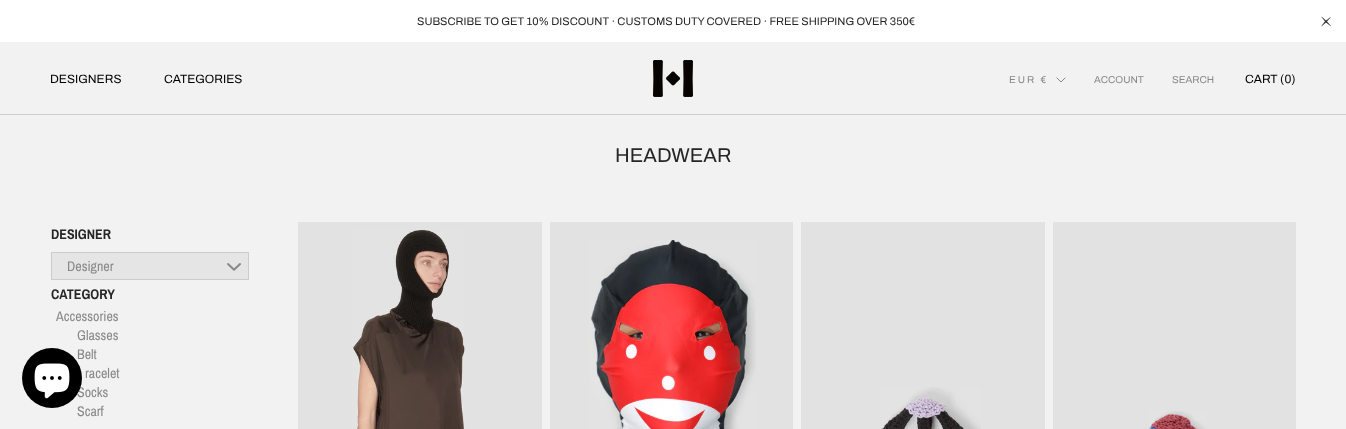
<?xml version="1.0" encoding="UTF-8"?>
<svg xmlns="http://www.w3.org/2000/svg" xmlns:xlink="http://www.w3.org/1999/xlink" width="1346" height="429">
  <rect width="100%" height="100%" fill="#f2f2f2" />
  <rect width="1346" height="42" fill="#ffffff" />
  <image x="1321" y="16" width="10" height="11" xlink:href="image1.png" />
  <rect y="114" width="1346" height="1" fill="#cecece" />
  <image x="653" y="60" width="40" height="37" xlink:href="image2.png" />
  <path d="M 1065 78 l -4 4 l -4 -4" fill="none" stroke="#888888" stroke-linecap="square" />
  <rect x="51.5" y="252.5" width="197" height="27" fill="#e5e5e5" stroke="#cccccc" />
  <image x="227" y="263" width="14" height="8" xlink:href="image3.png" />
  <rect x="298" y="222" width="244" height="207" fill="#e2e2e2" />
  <image x="352" y="229" width="113" height="200" xlink:href="image4.png" />
  <rect x="550" y="222" width="243" height="207" fill="#e2e2e2" />
  <image x="589" y="239" width="167" height="190" xlink:href="image5.png" />
  <rect x="801" y="222" width="244" height="207" fill="#e2e2e2" />
  <image x="881" y="387" width="100" height="42" xlink:href="image6.png" />
  <rect x="1053" y="222" width="243" height="207" fill="#e2e2e2" />
  <image x="1148" y="411" width="58" height="18" xlink:href="image7.png" />
  <text x="417" y="25" style="font-family: Archivo; font-size: 11px; fill: #262626">SUBSCRIBE TO GET 10% DISCOUNT · CUSTOMS DUTY COVERED · FREE SHIPPING OVER 350€</text>
  <text x="50" y="83" style="font-family: Archivo; font-size: 12px; fill: #000000">DESIGNERS</text>
  <text x="164" y="83" style="font-family: Archivo; font-size: 12px; fill: #000000">CATEGORIES</text>
  <text x="1009" y="83" style="font-family: Archivo; font-size: 10px; letter-spacing: 2px; fill: #888888">EUR €</text>
  <text x="1094" y="83" style="font-family: Archivo; font-size: 10px; fill: #888888">ACCOUNT</text>
  <text x="1172" y="83" style="font-family: Archivo; font-size: 10px; fill: #888888">SEARCH</text>
  <text x="1245" y="83" style="font-family: Archivo; font-size: 12px; fill: #000000">CART (0)</text>
  <text x="615" y="162" style="font-family: Archivo; font-size: 20px; fill: #262626">HEADWEAR</text>
  <text x="51" y="239" style="font-family: Archivo Narrow; font-size: 14px; font-weight: bold; fill: #262626">DESIGNER</text>
  <text x="67" y="271" style="font-family: Archivo Narrow; font-size: 14px; fill: #888888">Designer</text>
  <text x="51" y="299" style="font-family: Archivo Narrow; font-size: 14px; font-weight: bold; fill: #262626">CATEGORY</text>
  <text x="56" y="321" style="font-family: Archivo Narrow; font-size: 14px; fill: #888888">Accessories</text>
  <text x="77" y="340" style="font-family: Archivo Narrow; font-size: 14px; fill: #888888">Glasses</text>
  <text x="77" y="359" style="font-family: Archivo Narrow; font-size: 14px; fill: #888888">Belt</text>
  <text x="85" y="378" style="font-family: Archivo Narrow; font-size: 14px; fill: #888888">racelet</text>
  <text x="77" y="397" style="font-family: Archivo Narrow; font-size: 14px; fill: #888888">Socks</text>
  <text x="77" y="416" style="font-family: Archivo Narrow; font-size: 14px; fill: #888888">Scarf</text>
  <circle cx="52" cy="378" r="30" fill="#000000" />
  <image x="34" y="363" width="36" height="36" xlink:href="image8.png" />
</svg>
